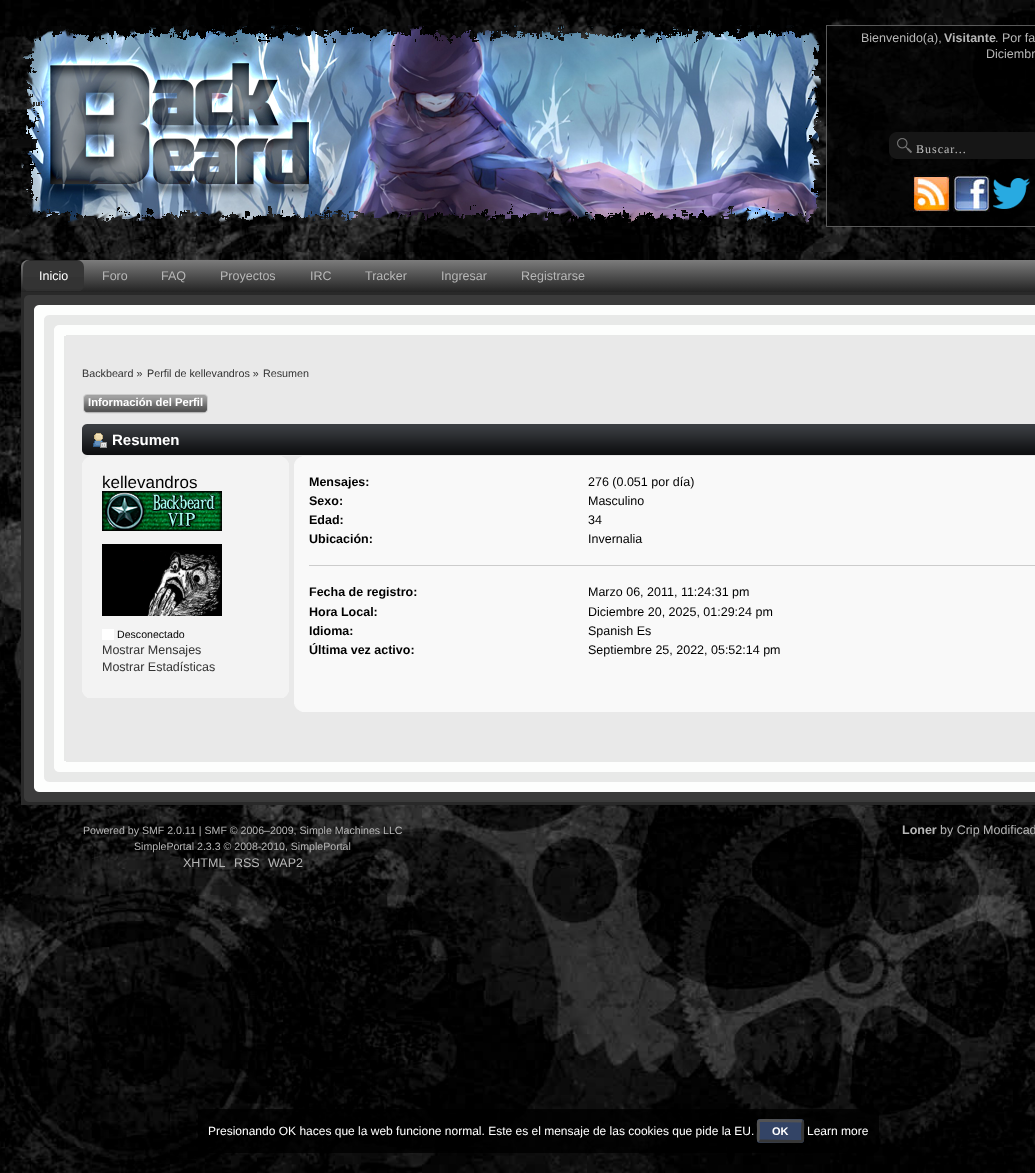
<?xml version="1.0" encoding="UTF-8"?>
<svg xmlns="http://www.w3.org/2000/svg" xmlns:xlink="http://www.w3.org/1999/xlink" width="1035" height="1173">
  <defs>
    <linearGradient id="g1" gradientUnits="userSpaceOnUse" x1="601" y1="260" x2="601" y2="292"><stop offset="0" stop-color="#7c7c7c" /><stop offset="1" stop-color="#232323" /></linearGradient>
  </defs>
  <rect width="100%" height="100%" fill="#ffffff" />
  <image x="0" y="0" width="1035" height="1173" xlink:href="image1.png" />
  <image x="21" y="25" width="800" height="198" xlink:href="image2.png" />
  <rect x="826" y="25" width="209" height="202" fill="#000000" fill-opacity="0.7" />
  <rect x="826.5" y="25.5" width="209" height="201" fill="none" stroke="#808080" stroke-opacity="0.7" />
  <image x="889" y="132" width="146" height="27" xlink:href="image3.png" />
  <image x="913" y="175" width="37" height="37" xlink:href="image4.png" />
  <image x="953" y="175" width="37" height="37" xlink:href="image5.png" />
  <image x="993" y="178" width="37" height="31" xlink:href="image6.png" />
  <path d="M 28 260 h 1007 c 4 0 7 3 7 7 v 25 h -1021 v -25 c 0 -4 3 -7 7 -7 z" fill="url(#g1)" />
  <image x="23" y="260" width="61" height="31" xlink:href="image7.png" />
  <image x="21" y="292" width="1014" height="44" xlink:href="image8.png" />
  <image x="21" y="295" width="45" height="41" xlink:href="image9.png" />
  <image x="21" y="336" width="45" height="424" xlink:href="image10.png" />
  <rect x="66" y="336" width="969" height="424" fill="#e9e9e9" />
  <image x="88" y="394" width="120" height="20" xlink:href="image11.png" />
  <image x="83" y="394" width="120" height="20" xlink:href="image12.png" />
  <image x="82" y="424" width="953" height="31" xlink:href="image13.png" />
  <image x="93" y="433" width="14" height="15" xlink:href="image14.png" />
  <rect x="82" y="456" width="207" height="242" fill="#f3f3f3" />
  <image x="82" y="456" width="7" height="7" xlink:href="image15.png" />
  <image x="282" y="456" width="7" height="7" xlink:href="image16.png" />
  <image x="102" y="491" width="120" height="40" xlink:href="image17.png" />
  <image x="102" y="544" width="120" height="72" xlink:href="image18.png" />
  <rect x="102" y="629" width="12" height="11" fill="#ffffff" />
  <image x="82" y="692" width="5" height="6" xlink:href="image19.png" />
  <image x="284" y="692" width="5" height="6" xlink:href="image20.png" />
  <rect x="294" y="456" width="741" height="256" fill="#f9f9f9" />
  <image x="294" y="456" width="8" height="8" xlink:href="image21.png" />
  <rect x="309" y="565" width="726" height="1" fill="#cccccc" />
  <image x="294" y="704" width="8" height="8" xlink:href="image22.png" />
  <image x="21" y="760" width="1014" height="45" xlink:href="image23.png" />
  <image x="21" y="760" width="45" height="42" xlink:href="image24.png" />
  <rect x="198" y="1109" width="681" height="44" rx="5" fill="#000000" fill-opacity="0.8" />
  <rect x="757" y="1119" width="47" height="24" rx="3" fill="#334466" />
  <path d="M 802 1121 c 1.5 1 0.5 8 0.5 10 c 0 12 2.5 10.5 -8.5 10.5 l -35 -0.5" fill="none" stroke="#373737" stroke-width="3" />
  <path d="M 759 1141 c -1.5 -1 -0.5 -8 -0.5 -10 c 0 -12 -2.5 -10.5 8.5 -10.5 l 35 0.5" fill="none" stroke="#525253" stroke-width="3" />
  <text x="861" y="42" style="font-family: Liberation Sans; font-size: 12.5px; fill: #b7b7b7">Bienvenido(a),</text>
  <text x="944" y="42" style="font-family: Liberation Sans; font-size: 12.5px; font-weight: bold; fill: #b7b7b7">Visitante</text>
  <text x="995" y="42" style="font-family: Liberation Sans; font-size: 12.5px; fill: #b7b7b7">. Por fa</text>
  <text x="986" y="58" style="font-family: Liberation Sans; font-size: 12.5px; fill: #b7b7b7">Diciembr</text>
  <text x="916" y="153" style="font-family: Liberation Serif; font-size: 12px; letter-spacing: 1px; fill: #c0c0c0">Buscar...</text>
  <text x="39" y="280" style="font-family: Liberation Sans; font-size: 12.5px; fill: #ffffff">Inicio</text>
  <text x="102" y="280" style="font-family: Liberation Sans; font-size: 12.5px; fill: #b7b7b7">Foro</text>
  <text x="161" y="280" style="font-family: Liberation Sans; font-size: 12.5px; fill: #b7b7b7">FAQ</text>
  <text x="220" y="280" style="font-family: Liberation Sans; font-size: 12.5px; fill: #b7b7b7">Proyectos</text>
  <text x="310" y="280" style="font-family: Liberation Sans; font-size: 12.5px; fill: #b7b7b7">IRC</text>
  <text x="365" y="280" style="font-family: Liberation Sans; font-size: 12.5px; fill: #b7b7b7">Tracker</text>
  <text x="441" y="280" style="font-family: Liberation Sans; font-size: 12.5px; fill: #b7b7b7">Ingresar</text>
  <text x="521" y="280" style="font-family: Liberation Sans; font-size: 12.5px; fill: #b7b7b7">Registrarse</text>
  <text x="82" y="377" style="font-family: Liberation Sans; font-size: 10.75px; fill: #333333">Backbeard »</text>
  <text x="147" y="377" style="font-family: Liberation Sans; font-size: 10.75px; fill: #333333">Perfil de kellevandros »</text>
  <text x="263" y="377" style="font-family: Liberation Sans; font-size: 10.75px; fill: #333333">Resumen</text>
  <text x="88" y="406" style="font-family: Liberation Sans; font-size: 11.25px; font-weight: bold; fill: #ffffff">Información del Perfil</text>
  <text x="112" y="445" style="font-family: Liberation Sans; font-size: 15px; font-weight: bold; fill: #ffffff">Resumen</text>
  <text x="102" y="488" style="font-family: Liberation Sans; font-size: 17px; fill: #000000">kellevandros</text>
  <text x="117" y="638" style="font-family: Liberation Sans; font-size: 10.6px; fill: #000000">Desconectado</text>
  <text x="102" y="654" style="font-family: Liberation Sans; font-size: 12.5px; fill: #333333">Mostrar Mensajes</text>
  <text x="102" y="671" style="font-family: Liberation Sans; font-size: 12.5px; fill: #333333">Mostrar Estadísticas</text>
  <text x="309" y="486" style="font-family: Liberation Sans; font-size: 12.5px; font-weight: bold; fill: #000000">Mensajes:</text>
  <text x="588" y="486" style="font-family: Liberation Sans; font-size: 12.5px; fill: #000000">276 (0.051 por día)</text>
  <text x="309" y="505" style="font-family: Liberation Sans; font-size: 12.5px; font-weight: bold; fill: #000000">Sexo:</text>
  <text x="588" y="505" style="font-family: Liberation Sans; font-size: 12.5px; fill: #000000">Masculino</text>
  <text x="309" y="524" style="font-family: Liberation Sans; font-size: 12.5px; font-weight: bold; fill: #000000">Edad:</text>
  <text x="588" y="524" style="font-family: Liberation Sans; font-size: 12.5px; fill: #000000">34</text>
  <text x="309" y="543" style="font-family: Liberation Sans; font-size: 12.5px; font-weight: bold; fill: #000000">Ubicación:</text>
  <text x="588" y="543" style="font-family: Liberation Sans; font-size: 12.5px; fill: #000000">Invernalia</text>
  <text x="309" y="596" style="font-family: Liberation Sans; font-size: 12.5px; font-weight: bold; fill: #000000">Fecha de registro:</text>
  <text x="588" y="596" style="font-family: Liberation Sans; font-size: 12.5px; fill: #000000">Marzo 06, 2011, 11:24:31 pm</text>
  <text x="309" y="616" style="font-family: Liberation Sans; font-size: 12.5px; font-weight: bold; fill: #000000">Hora Local:</text>
  <text x="588" y="616" style="font-family: Liberation Sans; font-size: 12.5px; fill: #000000">Diciembre 20, 2025, 01:29:24 pm</text>
  <text x="309" y="635" style="font-family: Liberation Sans; font-size: 12.5px; font-weight: bold; fill: #000000">Idioma:</text>
  <text x="588" y="635" style="font-family: Liberation Sans; font-size: 12.5px; fill: #000000">Spanish Es</text>
  <text x="309" y="654" style="font-family: Liberation Sans; font-size: 12.5px; font-weight: bold; fill: #000000">Última vez activo:</text>
  <text x="588" y="654" style="font-family: Liberation Sans; font-size: 12.5px; fill: #000000">Septiembre 25, 2022, 05:52:14 pm</text>
  <text x="83" y="834" style="font-family: Liberation Sans; font-size: 10.6px; fill: #b7b7b7">Powered by SMF 2.0.11 | SMF © 2006–2009, Simple Machines LLC</text>
  <text x="134" y="850" style="font-family: Liberation Sans; font-size: 10.6px; fill: #b7b7b7">SimplePortal 2.3.3 © 2008-2010, SimplePortal</text>
  <text x="183" y="867" style="font-family: Liberation Sans; font-size: 12.5px; fill: #b7b7b7">XHTML</text>
  <text x="234" y="867" style="font-family: Liberation Sans; font-size: 12.5px; fill: #b7b7b7">RSS</text>
  <text x="268" y="867" style="font-family: Liberation Sans; font-size: 12.5px; fill: #b7b7b7">WAP2</text>
  <text x="902" y="834" style="font-family: Liberation Sans; font-size: 12.5px; font-weight: bold; fill: #b7b7b7">Loner</text>
  <text x="940" y="834" style="font-family: Liberation Sans; font-size: 12.5px; fill: #b7b7b7">by Crip Modificad</text>
  <text x="208" y="1135" style="font-family: Liberation Sans; font-size: 12px; fill: #ffffff">Presionando OK haces que la web funcione normal. Este es el mensaje de las cookies que pide la EU.</text>
  <text x="772" y="1135" style="font-family: Liberation Sans; font-size: 11px; font-weight: bold; fill: #ffffff">OK</text>
  <text x="807" y="1135" style="font-family: Liberation Sans; font-size: 12px; fill: #ffffff">Learn more</text>
</svg>
